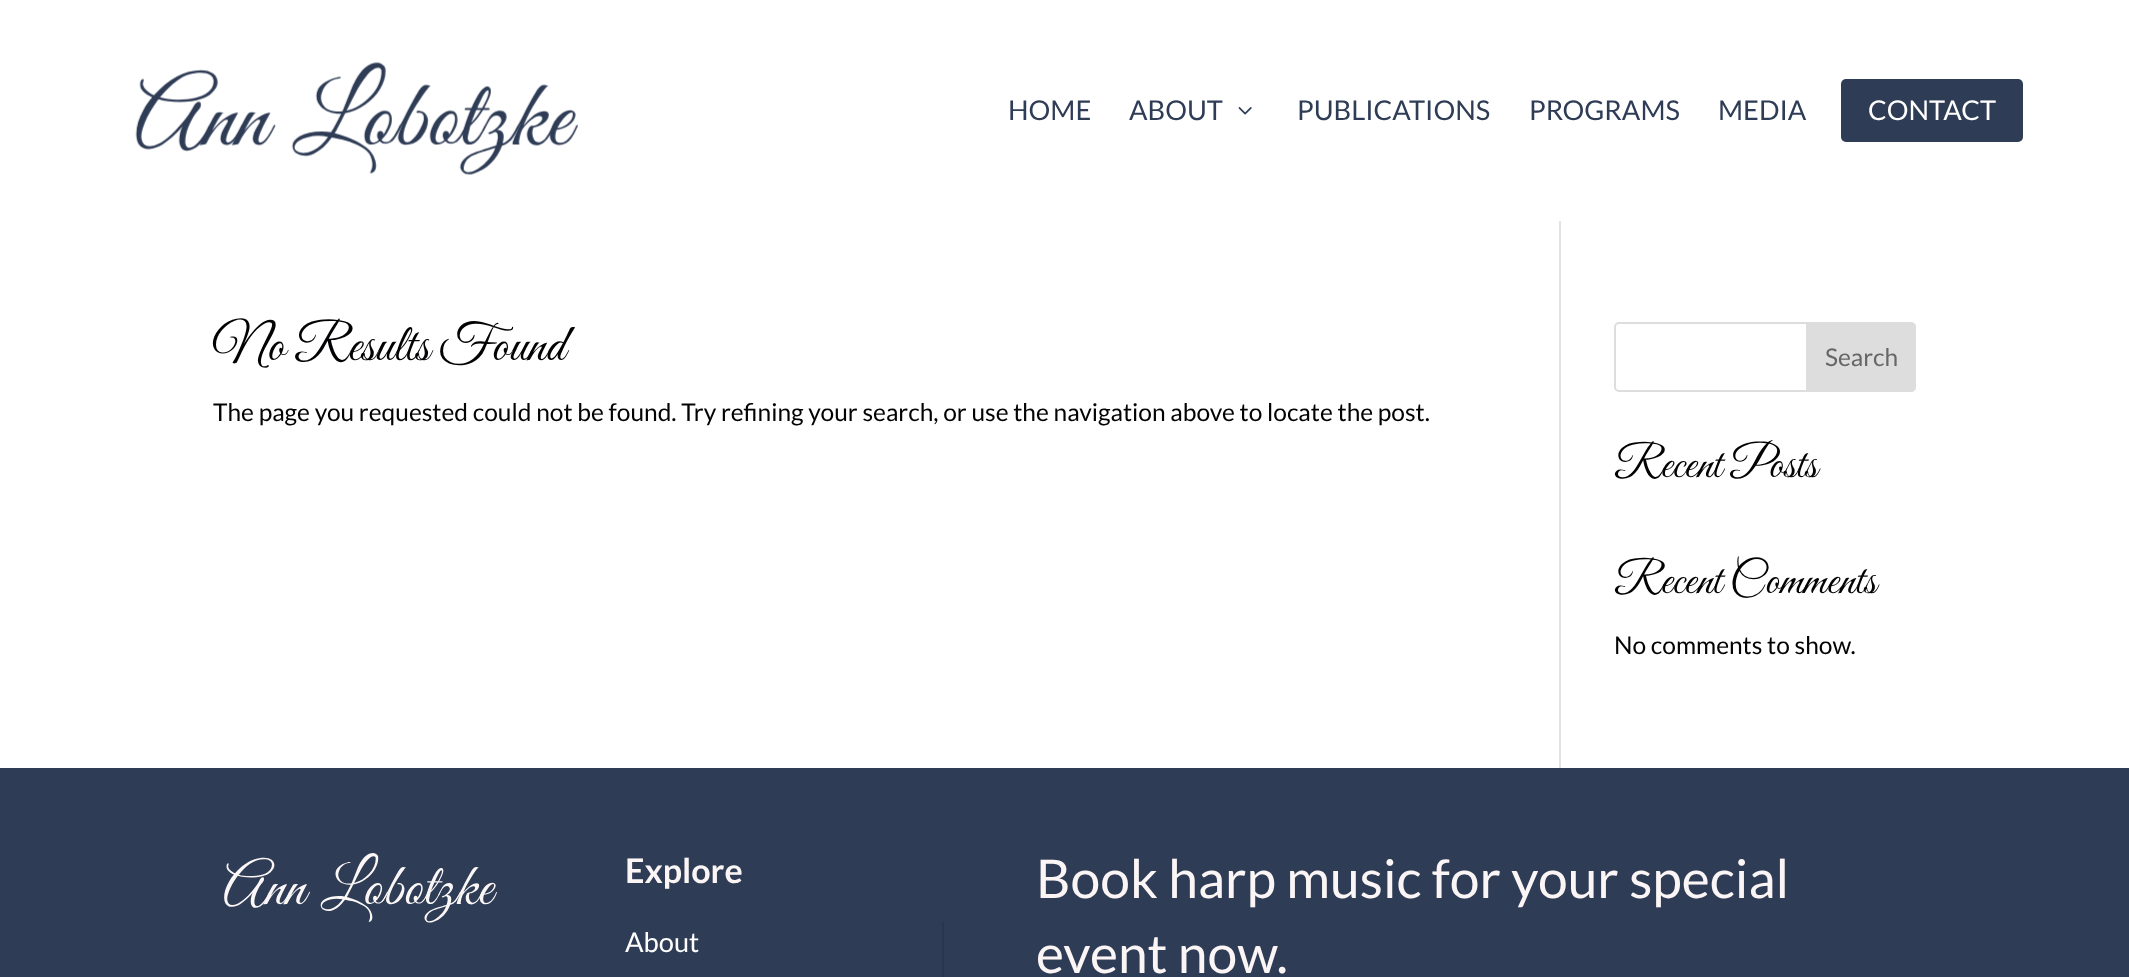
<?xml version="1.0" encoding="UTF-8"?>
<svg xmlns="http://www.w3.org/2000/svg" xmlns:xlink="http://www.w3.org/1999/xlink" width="2129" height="977">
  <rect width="100%" height="100%" fill="#ffffff" />
  <image x="135" y="62" width="443" height="113" xlink:href="image1.png" />
  <image x="1238" y="107" width="14" height="8" xlink:href="image2.png" />
  <rect x="1841" y="79" width="182" height="63" rx="5" fill="#2f3c56" />
  <rect x="1559" y="221" width="2" height="547" fill="#e2e2e2" />
  <rect x="1615" y="323" width="300" height="68" rx="4" fill="none" stroke="#dddddd" stroke-width="2" />
  <path d="M 1807 323 h 104 c 2 0 4 2 4 4 v 60 c 0 2 -2 4 -4 4 h -104 z" fill="#dddddd" stroke="#dddddd" stroke-width="2" />
  <rect y="768" width="2129" height="209" fill="#2f3c56" />
  <image x="224" y="853" width="274" height="70" xlink:href="image3.png" />
  <rect x="942" y="922" width="2" height="55" fill="#2a364d" />
  <text x="1008" y="120" style="font-family: Lato; font-size: 27.25px; fill: #2f3c56">HOME</text>
  <text x="1129" y="120" style="font-family: Lato; font-size: 27.25px; fill: #2f3c56">ABOUT</text>
  <text x="1297" y="120" style="font-family: Lato; font-size: 27.25px; fill: #2f3c56">PUBLICATIONS</text>
  <text x="1529" y="120" style="font-family: Lato; font-size: 27.25px; fill: #2f3c56">PROGRAMS</text>
  <text x="1718" y="120" style="font-family: Lato; font-size: 27.25px; fill: #2f3c56">MEDIA</text>
  <text x="1868" y="120" style="font-family: Lato; font-size: 27.25px; fill: #ffffff">CONTACT</text>
  <text x="213" y="360" style="font-family: Great Vibes; font-size: 52.5px; fill: #020204">No Results Found</text>
  <text x="213" y="421" style="font-family: Lato; font-size: 24.5px; fill: #020204">The page you requested could not be found. Try refining your search, or use the navigation above to locate the post.</text>
  <text x="1825" y="366" style="font-family: Lato; font-size: 24.5px; fill: #666666">Search</text>
  <text x="1614" y="477" style="font-family: Great Vibes; font-size: 45.5px; fill: #020204">Recent Posts</text>
  <text x="1614" y="593" style="font-family: Great Vibes; font-size: 45.5px; fill: #020204">Recent Comments</text>
  <text x="1614" y="654" style="font-family: Lato; font-size: 24.5px; fill: #020204">No comments to show.</text>
  <text x="625" y="883" style="font-family: Lato; font-size: 34px; font-weight: bold; fill: #fbf6f5">Explore</text>
  <text x="625" y="952" style="font-family: Lato; font-size: 27.25px; fill: #ffffff">About</text>
  <text x="1036" y="898" style="font-family: Lato; font-size: 53.4px; fill: #fbf6f5">Book harp music for your special</text>
  <text x="1036" y="973" style="font-family: Lato; font-size: 53.4px; fill: #fbf6f5">event now.</text>
</svg>
